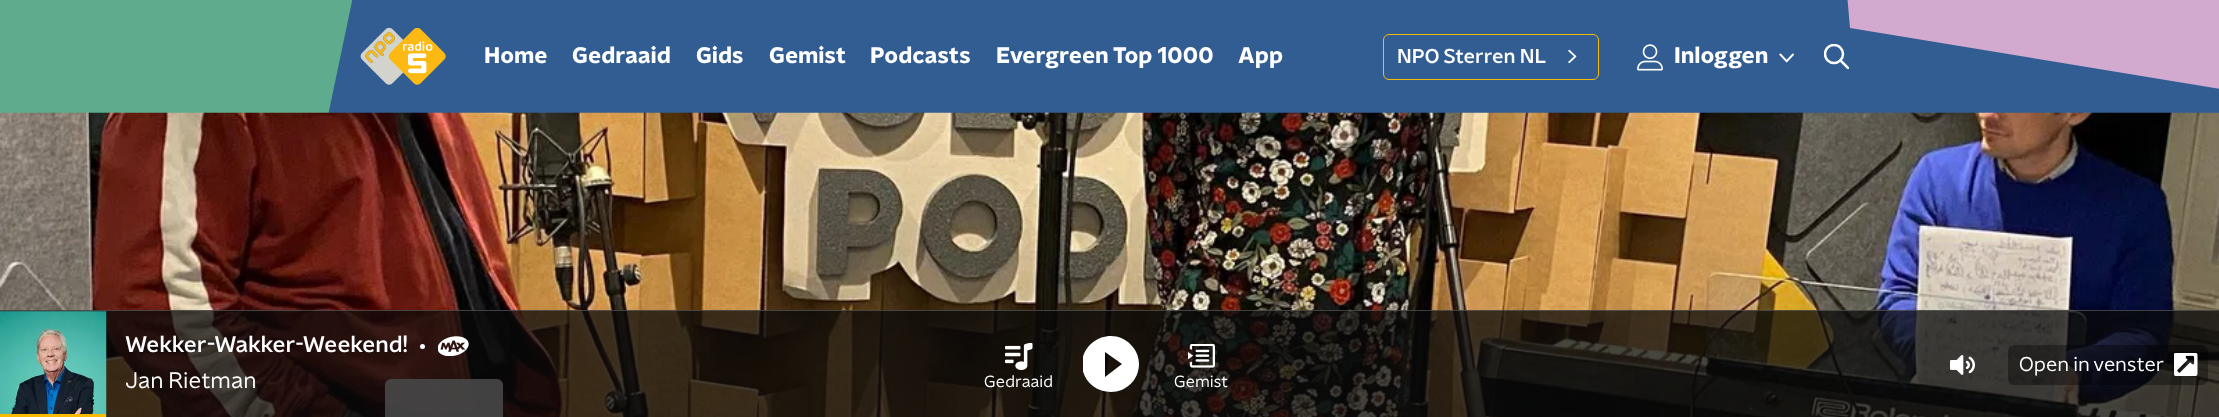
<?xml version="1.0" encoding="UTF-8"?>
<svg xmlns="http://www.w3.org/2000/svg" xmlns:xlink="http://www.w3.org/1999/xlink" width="2219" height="417">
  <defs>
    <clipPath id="clip1"><rect x="1824" y="44" width="25" height="25" /></clipPath>
    <clipPath id="clip2"><rect x="1083" y="336" width="56" height="57" /></clipPath>
  </defs>
  <rect width="100%" height="100%" fill="#325d92" />
  <path d="M 377 -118 l -318 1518 l -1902 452 l 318 -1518 z" fill="#5eab8d" />
  <path d="M 1850 28 l 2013 332 l -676 -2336 l -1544 -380 z" fill="#d2aad0" />
  <image x="360" y="28" width="86" height="57" xlink:href="image1.png" />
  <rect x="1383.5" y="34.5" width="215" height="45" rx="5.5" fill="none" stroke="#faba00" />
  <image x="1568" y="49" width="9" height="15" xlink:href="image2.png" />
  <image x="1637" y="44" width="26" height="27" xlink:href="image3.png" />
  <image x="1779" y="53" width="15" height="10" xlink:href="image4.png" />
  <g clip-path="url(#clip1)">
    <circle cx="1834" cy="54" r="9" fill="none" stroke="#ffffff" stroke-width="2.5" />
    <path d="M 1840.5 60.5 l 7.5 7.5" fill="none" stroke="#ffffff" stroke-width="2.5" stroke-linecap="square" />
  </g>
  <image x="0" y="112" width="2219" height="305" xlink:href="image5.png" />
  <rect x="385" y="379" width="118" height="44" rx="6" fill="#ffffff" fill-opacity="0.9" />
  <rect y="310" width="2219" height="107" fill="#090909" fill-opacity="0.75" />
  <rect y="310" width="2219" height="1" fill="#5f5f5f" fill-opacity="0.65" />
  <image x="0" y="311" width="107" height="106" xlink:href="image6.png" />
  <rect y="414" width="106" height="3" fill="#faba00" />
  <circle cx="422.5" cy="346.5" r="2.5" fill="#ffffff" />
  <image x="438" y="336" width="31" height="20" xlink:href="image7.png" />
  <image x="1950" y="355" width="25" height="20" xlink:href="image8.png" />
  <rect x="2008" y="345" width="200" height="40" rx="6" fill="#000000" fill-opacity="0.35" />
  <image x="2174" y="353" width="24" height="23" xlink:href="image9.png" />
  <image x="1005" y="343" width="28" height="27" xlink:href="image10.png" />
  <g clip-path="url(#clip2)">
    <path d="M 1111 336 c -16 0 -29 13 -29 28 c 0 16 13 28 29 28 c 15 0 28 -12 28 -28 c 0 -15 -13 -28 -28 -28 z m -6 41 v -25 l 17 12 z" fill="#ffffff" />
  </g>
  <image x="1188" y="344" width="27" height="24" xlink:href="image11.png" />
  <text x="484" y="63" style="font-family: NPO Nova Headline; font-size: 22.5px; font-weight: bold; fill: #ffffff">Home</text>
  <text x="572" y="63" style="font-family: NPO Nova Headline; font-size: 22.5px; font-weight: bold; fill: #ffffff">Gedraaid</text>
  <text x="696" y="63" style="font-family: NPO Nova Headline; font-size: 22.5px; font-weight: bold; fill: #ffffff">Gids</text>
  <text x="769" y="63" style="font-family: NPO Nova Headline; font-size: 22.5px; font-weight: bold; fill: #ffffff">Gemist</text>
  <text x="870" y="63" style="font-family: NPO Nova Headline; font-size: 22.5px; font-weight: bold; fill: #ffffff">Podcasts</text>
  <text x="996" y="63" style="font-family: NPO Nova Headline; font-size: 22.5px; font-weight: bold; fill: #ffffff">Evergreen Top 1000</text>
  <text x="1238" y="63" style="font-family: NPO Nova Headline; font-size: 22.5px; font-weight: bold; fill: #ffffff">App</text>
  <text x="1397" y="63" style="font-family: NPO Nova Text; font-size: 20px; font-weight: 500; fill: #ffffff">NPO Sterren NL</text>
  <text x="1674" y="63" style="font-family: NPO Nova Headline; font-size: 22.5px; font-weight: bold; fill: #ffffff">Inloggen</text>
  <text x="125" y="352" style="font-family: NPO Nova Text; font-size: 22.5px; font-weight: 500; fill: #ffffff">Wekker-Wakker-Weekend!</text>
  <text x="125" y="388" style="font-family: NPO Nova Text; font-size: 22.5px; fill: #ffffff">Jan Rietman</text>
  <text x="2019" y="371" style="font-family: NPO Nova Text; font-size: 20px; fill: #ffffff">Open in venster</text>
  <text x="984" y="387" style="font-family: NPO Nova Text; font-size: 16.25px; fill: #ffffff">Gedraaid</text>
  <text x="1174" y="387" style="font-family: NPO Nova Text; font-size: 16.25px; fill: #ffffff">Gemist</text>
</svg>
